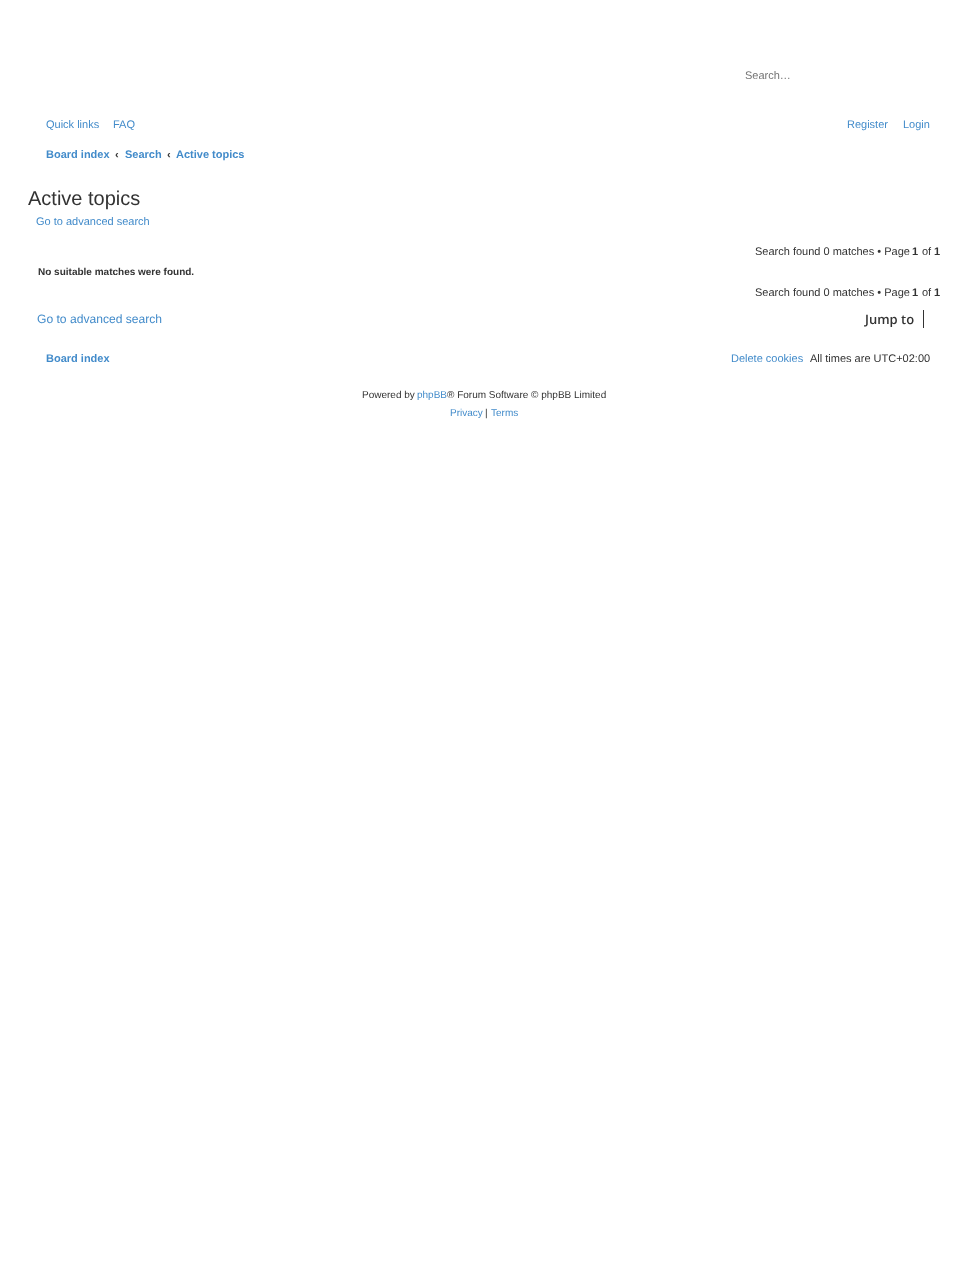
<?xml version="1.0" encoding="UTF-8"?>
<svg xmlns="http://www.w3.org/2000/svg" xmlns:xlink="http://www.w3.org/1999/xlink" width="968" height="1263">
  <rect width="100%" height="100%" fill="#ffffff" />
  <rect x="923" y="310" width="1" height="18" fill="#333333" />
  <text x="745" y="79" style="font-family: Liberation Sans; font-size: 11px; fill: #757575">Search…</text>
  <text x="46" y="128" style="font-family: Liberation Sans; font-size: 11px; fill: #428bca">Quick links</text>
  <text x="113" y="128" style="font-family: Liberation Sans; font-size: 11px; fill: #428bca">FAQ</text>
  <text x="847" y="128" style="font-family: Liberation Sans; font-size: 11px; fill: #428bca">Register</text>
  <text x="903" y="128" style="font-family: Liberation Sans; font-size: 11px; fill: #428bca">Login</text>
  <text x="46" y="158" style="font-family: Liberation Sans; font-size: 11px; font-weight: bold; fill: #428bca">Board index</text>
  <text x="115" y="158" style="font-family: Liberation Sans; font-size: 11px; font-weight: bold; fill: #333333">‹</text>
  <text x="125" y="158" style="font-family: Liberation Sans; font-size: 11px; font-weight: bold; fill: #428bca">Search</text>
  <text x="167" y="158" style="font-family: Liberation Sans; font-size: 11px; font-weight: bold; fill: #333333">‹</text>
  <text x="176" y="158" style="font-family: Liberation Sans; font-size: 11px; font-weight: bold; fill: #428bca">Active topics</text>
  <text x="28" y="205" style="font-family: Liberation Sans; font-size: 20px; fill: #333333">Active topics</text>
  <text x="36" y="225" style="font-family: Liberation Sans; font-size: 11px; fill: #428bca">Go to advanced search</text>
  <text x="755" y="255" style="font-family: Liberation Sans; font-size: 11px; fill: #333333">Search found 0 matches • Page</text>
  <text x="912" y="255" style="font-family: Liberation Sans; font-size: 11px; font-weight: bold; fill: #333333">1</text>
  <text x="922" y="255" style="font-family: Liberation Sans; font-size: 11px; fill: #333333">of</text>
  <text x="934" y="255" style="font-family: Liberation Sans; font-size: 11px; font-weight: bold; fill: #333333">1</text>
  <text x="38" y="275" style="font-family: Liberation Sans; font-size: 10px; font-weight: bold; fill: #333333">No suitable matches were found.</text>
  <text x="755" y="296" style="font-family: Liberation Sans; font-size: 11px; fill: #333333">Search found 0 matches • Page</text>
  <text x="912" y="296" style="font-family: Liberation Sans; font-size: 11px; font-weight: bold; fill: #333333">1</text>
  <text x="922" y="296" style="font-family: Liberation Sans; font-size: 11px; fill: #333333">of</text>
  <text x="934" y="296" style="font-family: Liberation Sans; font-size: 11px; font-weight: bold; fill: #333333">1</text>
  <text x="37" y="323" style="font-family: Liberation Sans; font-size: 12.1px; fill: #428bca">Go to advanced search</text>
  <text x="865" y="324" style="font-family: Open Sans; font-size: 13px; font-weight: 600; fill: #333333">Jump to</text>
  <text x="46" y="362" style="font-family: Liberation Sans; font-size: 11px; font-weight: bold; fill: #428bca">Board index</text>
  <text x="731" y="362" style="font-family: Liberation Sans; font-size: 11px; fill: #428bca">Delete cookies</text>
  <text x="810" y="362" style="font-family: Liberation Sans; font-size: 11px; fill: #333333">All times are UTC+02:00</text>
  <text x="362" y="398" style="font-family: Liberation Sans; font-size: 10px; fill: #333333">Powered by</text>
  <text x="417" y="398" style="font-family: Liberation Sans; font-size: 10px; fill: #428bca">phpBB</text>
  <text x="447" y="398" style="font-family: Liberation Sans; font-size: 10px; fill: #333333">® Forum Software © phpBB Limited</text>
  <text x="450" y="416" style="font-family: Liberation Sans; font-size: 10px; fill: #428bca">Privacy</text>
  <text x="485" y="416" style="font-family: Liberation Sans; font-size: 10px; fill: #333333">|</text>
  <text x="491" y="416" style="font-family: Liberation Sans; font-size: 10px; fill: #428bca">Terms</text>
</svg>
